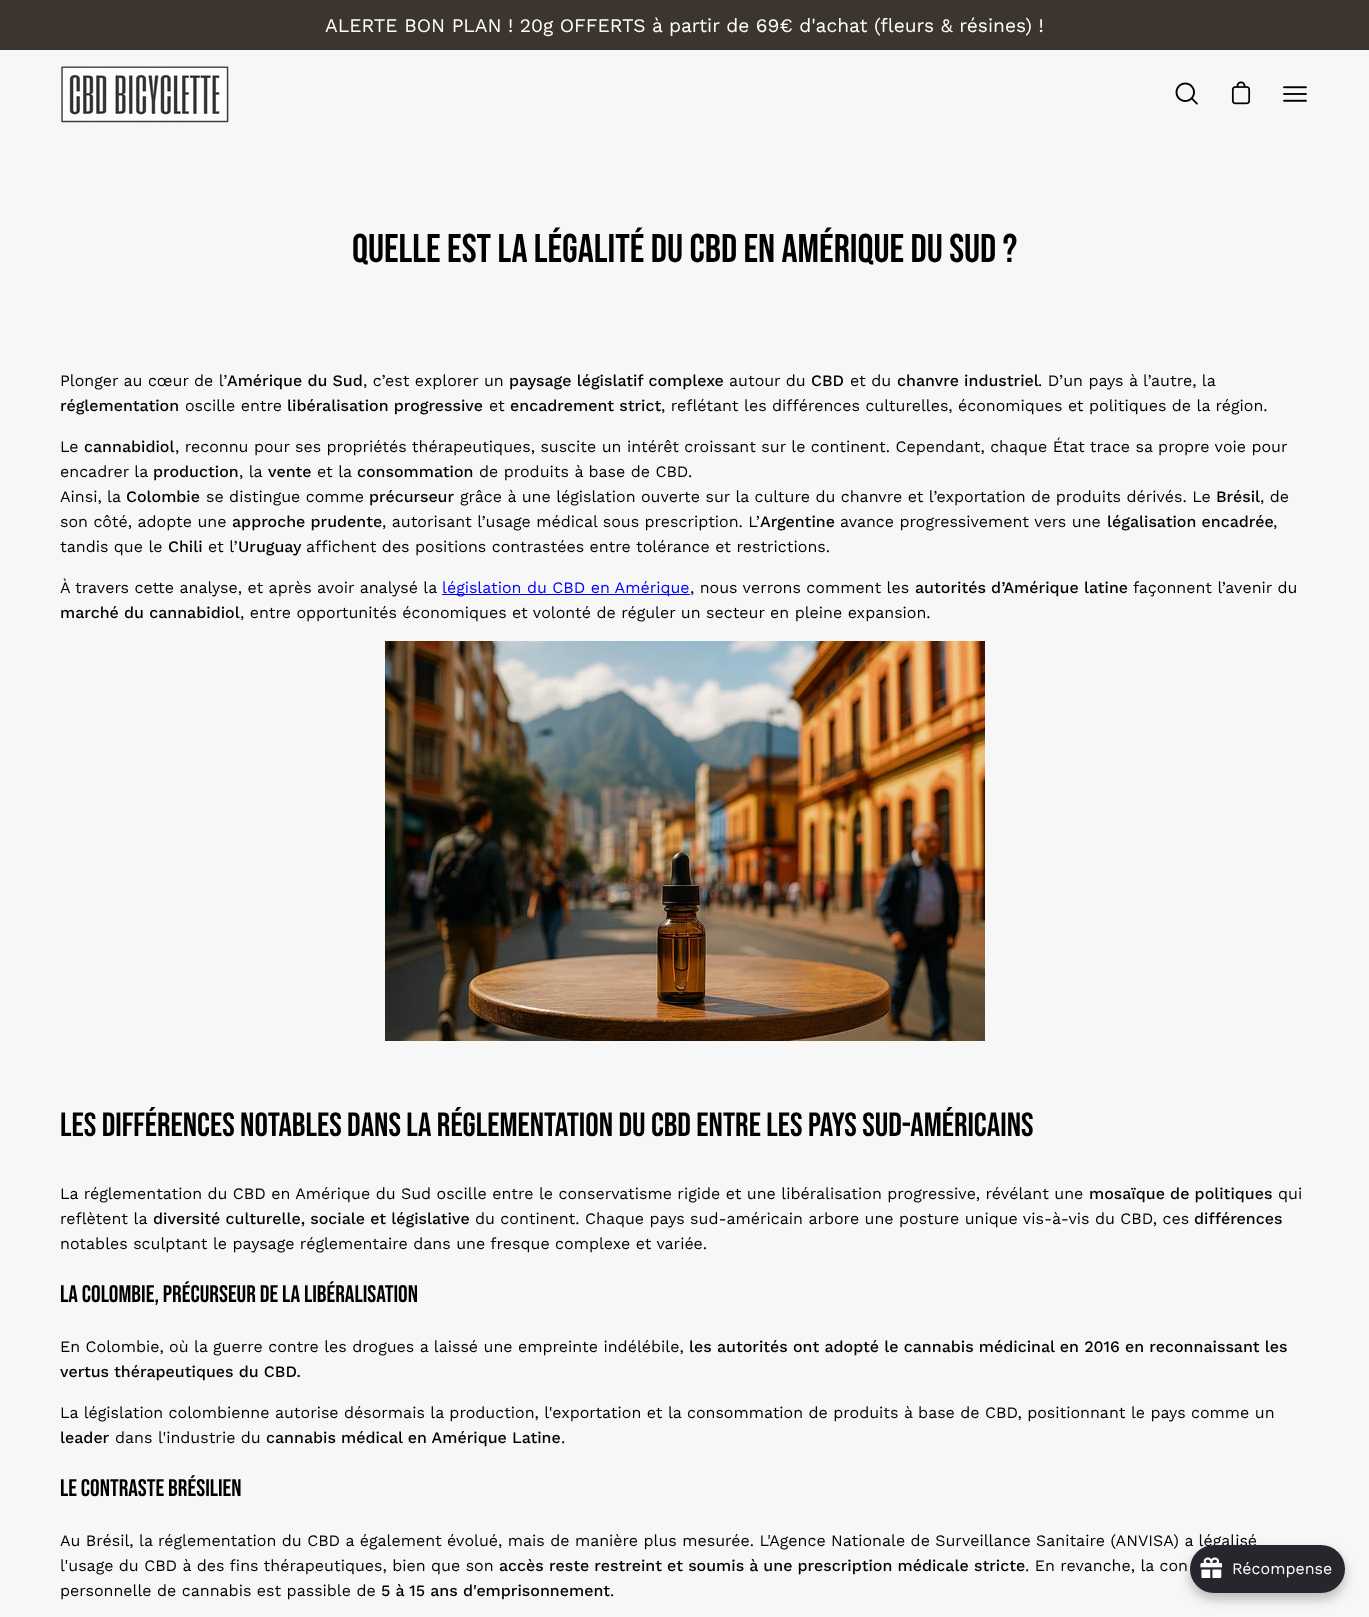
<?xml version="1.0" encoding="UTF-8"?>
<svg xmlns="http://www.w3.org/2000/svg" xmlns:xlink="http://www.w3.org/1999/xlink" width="1369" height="1617">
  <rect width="100%" height="100%" fill="#f7f7f7" />
  <rect width="1369" height="50" fill="#3b352e" />
  <image x="61" y="66" width="168" height="57" xlink:href="image1.png" />
  <image x="1175" y="82" width="23" height="23" xlink:href="image2.png" />
  <image x="1231" y="81" width="20" height="24" xlink:href="image3.png" />
  <image x="1283" y="86" width="24" height="16" xlink:href="image4.png" />
  <rect x="442" y="594" width="248" height="1" fill="#0000ff" />
  <image x="385" y="641" width="600" height="400" xlink:href="image5.png" />
  <rect x="1190" y="1551" width="155" height="48" rx="24" fill="#000000" fill-opacity="0.25" filter="blur(6px)" />
  <text x="325" y="32" style="font-family: Work Sans; font-size: 19.2px; fill: #ffffff">ALERTE BON PLAN ! 20g OFFERTS à partir de 69€ d'achat (fleurs &amp; résines) !</text>
  <text x="352" y="262" style="font-family: Bebas Neue; font-size: 40px; fill: #000000">Quelle est la légalité du CBD en Amérique du Sud ?</text>
  <text x="60" y="386" style="font-family: Work Sans; font-size: 16px; fill: #000000">Plonger au cœur de l’</text>
  <text x="227" y="386" style="font-family: Work Sans; font-size: 16px; font-weight: 500; fill: #000000">Amérique du Sud</text>
  <text x="363" y="386" style="font-family: Work Sans; font-size: 16px; fill: #000000">, c’est explorer un</text>
  <text x="509" y="386" style="font-family: Work Sans; font-size: 16px; font-weight: 500; fill: #000000">paysage législatif complexe</text>
  <text x="729" y="386" style="font-family: Work Sans; font-size: 16px; fill: #000000">autour du</text>
  <text x="811" y="386" style="font-family: Work Sans; font-size: 16px; font-weight: 500; fill: #000000">CBD</text>
  <text x="850" y="386" style="font-family: Work Sans; font-size: 16px; fill: #000000">et du</text>
  <text x="897" y="386" style="font-family: Work Sans; font-size: 16px; font-weight: 500; fill: #000000">chanvre industriel</text>
  <text x="1038" y="386" style="font-family: Work Sans; font-size: 16px; fill: #000000">. D’un pays à l’autre, la</text>
  <text x="60" y="411" style="font-family: Work Sans; font-size: 16px; font-weight: 500; fill: #000000">réglementation</text>
  <text x="185" y="411" style="font-family: Work Sans; font-size: 16px; fill: #000000">oscille entre</text>
  <text x="287" y="411" style="font-family: Work Sans; font-size: 16px; font-weight: 500; fill: #000000">libéralisation progressive</text>
  <text x="489" y="411" style="font-family: Work Sans; font-size: 16px; fill: #000000">et</text>
  <text x="510" y="411" style="font-family: Work Sans; font-size: 16px; font-weight: 500; fill: #000000">encadrement strict</text>
  <text x="661" y="411" style="font-family: Work Sans; font-size: 16px; fill: #000000">, reflétant les différences culturelles, économiques et politiques de la région.</text>
  <text x="60" y="452" style="font-family: Work Sans; font-size: 16px; fill: #000000">Le</text>
  <text x="84" y="452" style="font-family: Work Sans; font-size: 16px; font-weight: 500; fill: #000000">cannabidiol</text>
  <text x="175" y="452" style="font-family: Work Sans; font-size: 16px; fill: #000000">, reconnu pour ses propriétés thérapeutiques, suscite un intérêt croissant sur le continent. Cependant, chaque État trace sa propre voie pour</text>
  <text x="60" y="477" style="font-family: Work Sans; font-size: 16px; fill: #000000">encadrer la</text>
  <text x="153" y="477" style="font-family: Work Sans; font-size: 16px; font-weight: 500; fill: #000000">production</text>
  <text x="239" y="477" style="font-family: Work Sans; font-size: 16px; fill: #000000">, la</text>
  <text x="268" y="477" style="font-family: Work Sans; font-size: 16px; font-weight: 500; fill: #000000">vente</text>
  <text x="317" y="477" style="font-family: Work Sans; font-size: 16px; fill: #000000">et la</text>
  <text x="357" y="477" style="font-family: Work Sans; font-size: 16px; font-weight: 500; fill: #000000">consommation</text>
  <text x="479" y="477" style="font-family: Work Sans; font-size: 16px; fill: #000000">de produits à base de CBD.</text>
  <text x="60" y="502" style="font-family: Work Sans; font-size: 16px; fill: #000000">Ainsi, la</text>
  <text x="126" y="502" style="font-family: Work Sans; font-size: 16px; font-weight: 500; fill: #000000">Colombie</text>
  <text x="206" y="502" style="font-family: Work Sans; font-size: 16px; fill: #000000">se distingue comme</text>
  <text x="369" y="502" style="font-family: Work Sans; font-size: 16px; font-weight: 500; fill: #000000">précurseur</text>
  <text x="460" y="502" style="font-family: Work Sans; font-size: 16px; fill: #000000">grâce à une législation ouverte sur la culture du chanvre et l’exportation de produits dérivés. Le</text>
  <text x="1216" y="502" style="font-family: Work Sans; font-size: 16px; font-weight: 500; fill: #000000">Brésil</text>
  <text x="1260" y="502" style="font-family: Work Sans; font-size: 16px; fill: #000000">, de</text>
  <text x="60" y="527" style="font-family: Work Sans; font-size: 16px; fill: #000000">son côté, adopte une</text>
  <text x="232" y="527" style="font-family: Work Sans; font-size: 16px; font-weight: 500; fill: #000000">approche prudente</text>
  <text x="382" y="527" style="font-family: Work Sans; font-size: 16px; fill: #000000">, autorisant l’usage médical sous prescription. L’</text>
  <text x="760" y="527" style="font-family: Work Sans; font-size: 16px; font-weight: 500; fill: #000000">Argentine</text>
  <text x="840" y="527" style="font-family: Work Sans; font-size: 16px; fill: #000000">avance progressivement vers une</text>
  <text x="1107" y="527" style="font-family: Work Sans; font-size: 16px; font-weight: 500; fill: #000000">légalisation encadrée</text>
  <text x="1273" y="527" style="font-family: Work Sans; font-size: 16px; fill: #000000">,</text>
  <text x="60" y="552" style="font-family: Work Sans; font-size: 16px; fill: #000000">tandis que le</text>
  <text x="168" y="552" style="font-family: Work Sans; font-size: 16px; font-weight: 500; fill: #000000">Chili</text>
  <text x="208" y="552" style="font-family: Work Sans; font-size: 16px; fill: #000000">et l’</text>
  <text x="238" y="552" style="font-family: Work Sans; font-size: 16px; font-weight: 500; fill: #000000">Uruguay</text>
  <text x="306" y="552" style="font-family: Work Sans; font-size: 16px; fill: #000000">affichent des positions contrastées entre tolérance et restrictions.</text>
  <text x="60" y="593" style="font-family: Work Sans; font-size: 16px; fill: #000000">À travers cette analyse, et après avoir analysé la</text>
  <text x="442" y="593" style="font-family: Work Sans; font-size: 16px; fill: #0000ff">législation du CBD en Amérique</text>
  <text x="690" y="593" style="font-family: Work Sans; font-size: 16px; fill: #000000">, nous verrons comment les</text>
  <text x="915" y="593" style="font-family: Work Sans; font-size: 16px; font-weight: 500; fill: #000000">autorités d’Amérique latine</text>
  <text x="1133" y="593" style="font-family: Work Sans; font-size: 16px; fill: #000000">façonnent l’avenir du</text>
  <text x="60" y="618" style="font-family: Work Sans; font-size: 16px; font-weight: 500; fill: #000000">marché du cannabidiol</text>
  <text x="240" y="618" style="font-family: Work Sans; font-size: 16px; fill: #000000">, entre opportunités économiques et volonté de réguler un secteur en pleine expansion.</text>
  <text x="60" y="1136" style="font-family: Bebas Neue; font-size: 33.6px; fill: #000000">Les différences notables dans la réglementation du CBD entre les pays sud-américains</text>
  <text x="60" y="1199" style="font-family: Work Sans; font-size: 16px; fill: #000000">La réglementation du CBD en Amérique du Sud oscille entre le conservatisme rigide et une libéralisation progressive, révélant une</text>
  <text x="1089" y="1199" style="font-family: Work Sans; font-size: 16px; font-weight: 500; fill: #000000">mosaïque de politiques</text>
  <text x="1278" y="1199" style="font-family: Work Sans; font-size: 16px; fill: #000000">qui</text>
  <text x="60" y="1224" style="font-family: Work Sans; font-size: 16px; fill: #000000">reflètent la</text>
  <text x="153" y="1224" style="font-family: Work Sans; font-size: 16px; font-weight: 500; fill: #000000">diversité culturelle, sociale et législative</text>
  <text x="475" y="1224" style="font-family: Work Sans; font-size: 16px; fill: #000000">du continent. Chaque pays sud-américain arbore une posture unique vis-à-vis du CBD, ces</text>
  <text x="1194" y="1224" style="font-family: Work Sans; font-size: 16px; font-weight: 500; fill: #000000">différences</text>
  <text x="60" y="1249" style="font-family: Work Sans; font-size: 16px; fill: #000000">notables sculptant le paysage réglementaire dans une fresque complexe et variée.</text>
  <text x="60" y="1302" style="font-family: Bebas Neue; font-size: 24px; fill: #000000">La Colombie, précurseur de la libéralisation</text>
  <text x="60" y="1352" style="font-family: Work Sans; font-size: 16px; fill: #000000">En Colombie, où la guerre contre les drogues a laissé une empreinte indélébile,</text>
  <text x="689" y="1352" style="font-family: Work Sans; font-size: 16px; font-weight: 500; fill: #000000">les autorités ont adopté le cannabis médicinal en 2016 en reconnaissant les</text>
  <text x="60" y="1377" style="font-family: Work Sans; font-size: 16px; font-weight: 500; fill: #000000">vertus thérapeutiques du CBD.</text>
  <text x="60" y="1418" style="font-family: Work Sans; font-size: 16px; fill: #000000">La législation colombienne autorise désormais la production, l'exportation et la consommation de produits à base de CBD, positionnant le pays comme un</text>
  <text x="60" y="1443" style="font-family: Work Sans; font-size: 16px; font-weight: 500; fill: #000000">leader</text>
  <text x="115" y="1443" style="font-family: Work Sans; font-size: 16px; fill: #000000">dans l'industrie du</text>
  <text x="266" y="1443" style="font-family: Work Sans; font-size: 16px; font-weight: 500; fill: #000000">cannabis médical en Amérique Latine</text>
  <text x="561" y="1443" style="font-family: Work Sans; font-size: 16px; fill: #000000">.</text>
  <text x="60" y="1496" style="font-family: Bebas Neue; font-size: 24px; fill: #000000">Le contraste brésilien</text>
  <text x="60" y="1546" style="font-family: Work Sans; font-size: 16px; fill: #000000">Au Brésil, la réglementation du CBD a également évolué, mais de manière plus mesurée. L'Agence Nationale de Surveillance Sanitaire (ANVISA) a légalisé</text>
  <text x="60" y="1571" style="font-family: Work Sans; font-size: 16px; fill: #000000">l'usage du CBD à des fins thérapeutiques, bien que son</text>
  <text x="499" y="1571" style="font-family: Work Sans; font-size: 16px; font-weight: 500; fill: #000000">accès reste restreint et soumis à une prescription médicale stricte</text>
  <text x="1025" y="1571" style="font-family: Work Sans; font-size: 16px; fill: #000000">. En revanche, la con</text>
  <text x="60" y="1596" style="font-family: Work Sans; font-size: 16px; fill: #000000">personnelle de cannabis est passible de</text>
  <text x="381" y="1596" style="font-family: Work Sans; font-size: 16px; font-weight: 500; fill: #000000">5 à 15 ans d'emprisonnement</text>
  <text x="610" y="1596" style="font-family: Work Sans; font-size: 16px; fill: #000000">.</text>
  <rect x="1190" y="1545" width="155" height="48" rx="24" fill="#25272c" />
  <image x="1200" y="1557" width="22" height="21" xlink:href="image6.png" />
  <text x="1232" y="1574" style="font-family: Work Sans; font-size: 16px; fill: #ffffff">Récompense</text>
</svg>
